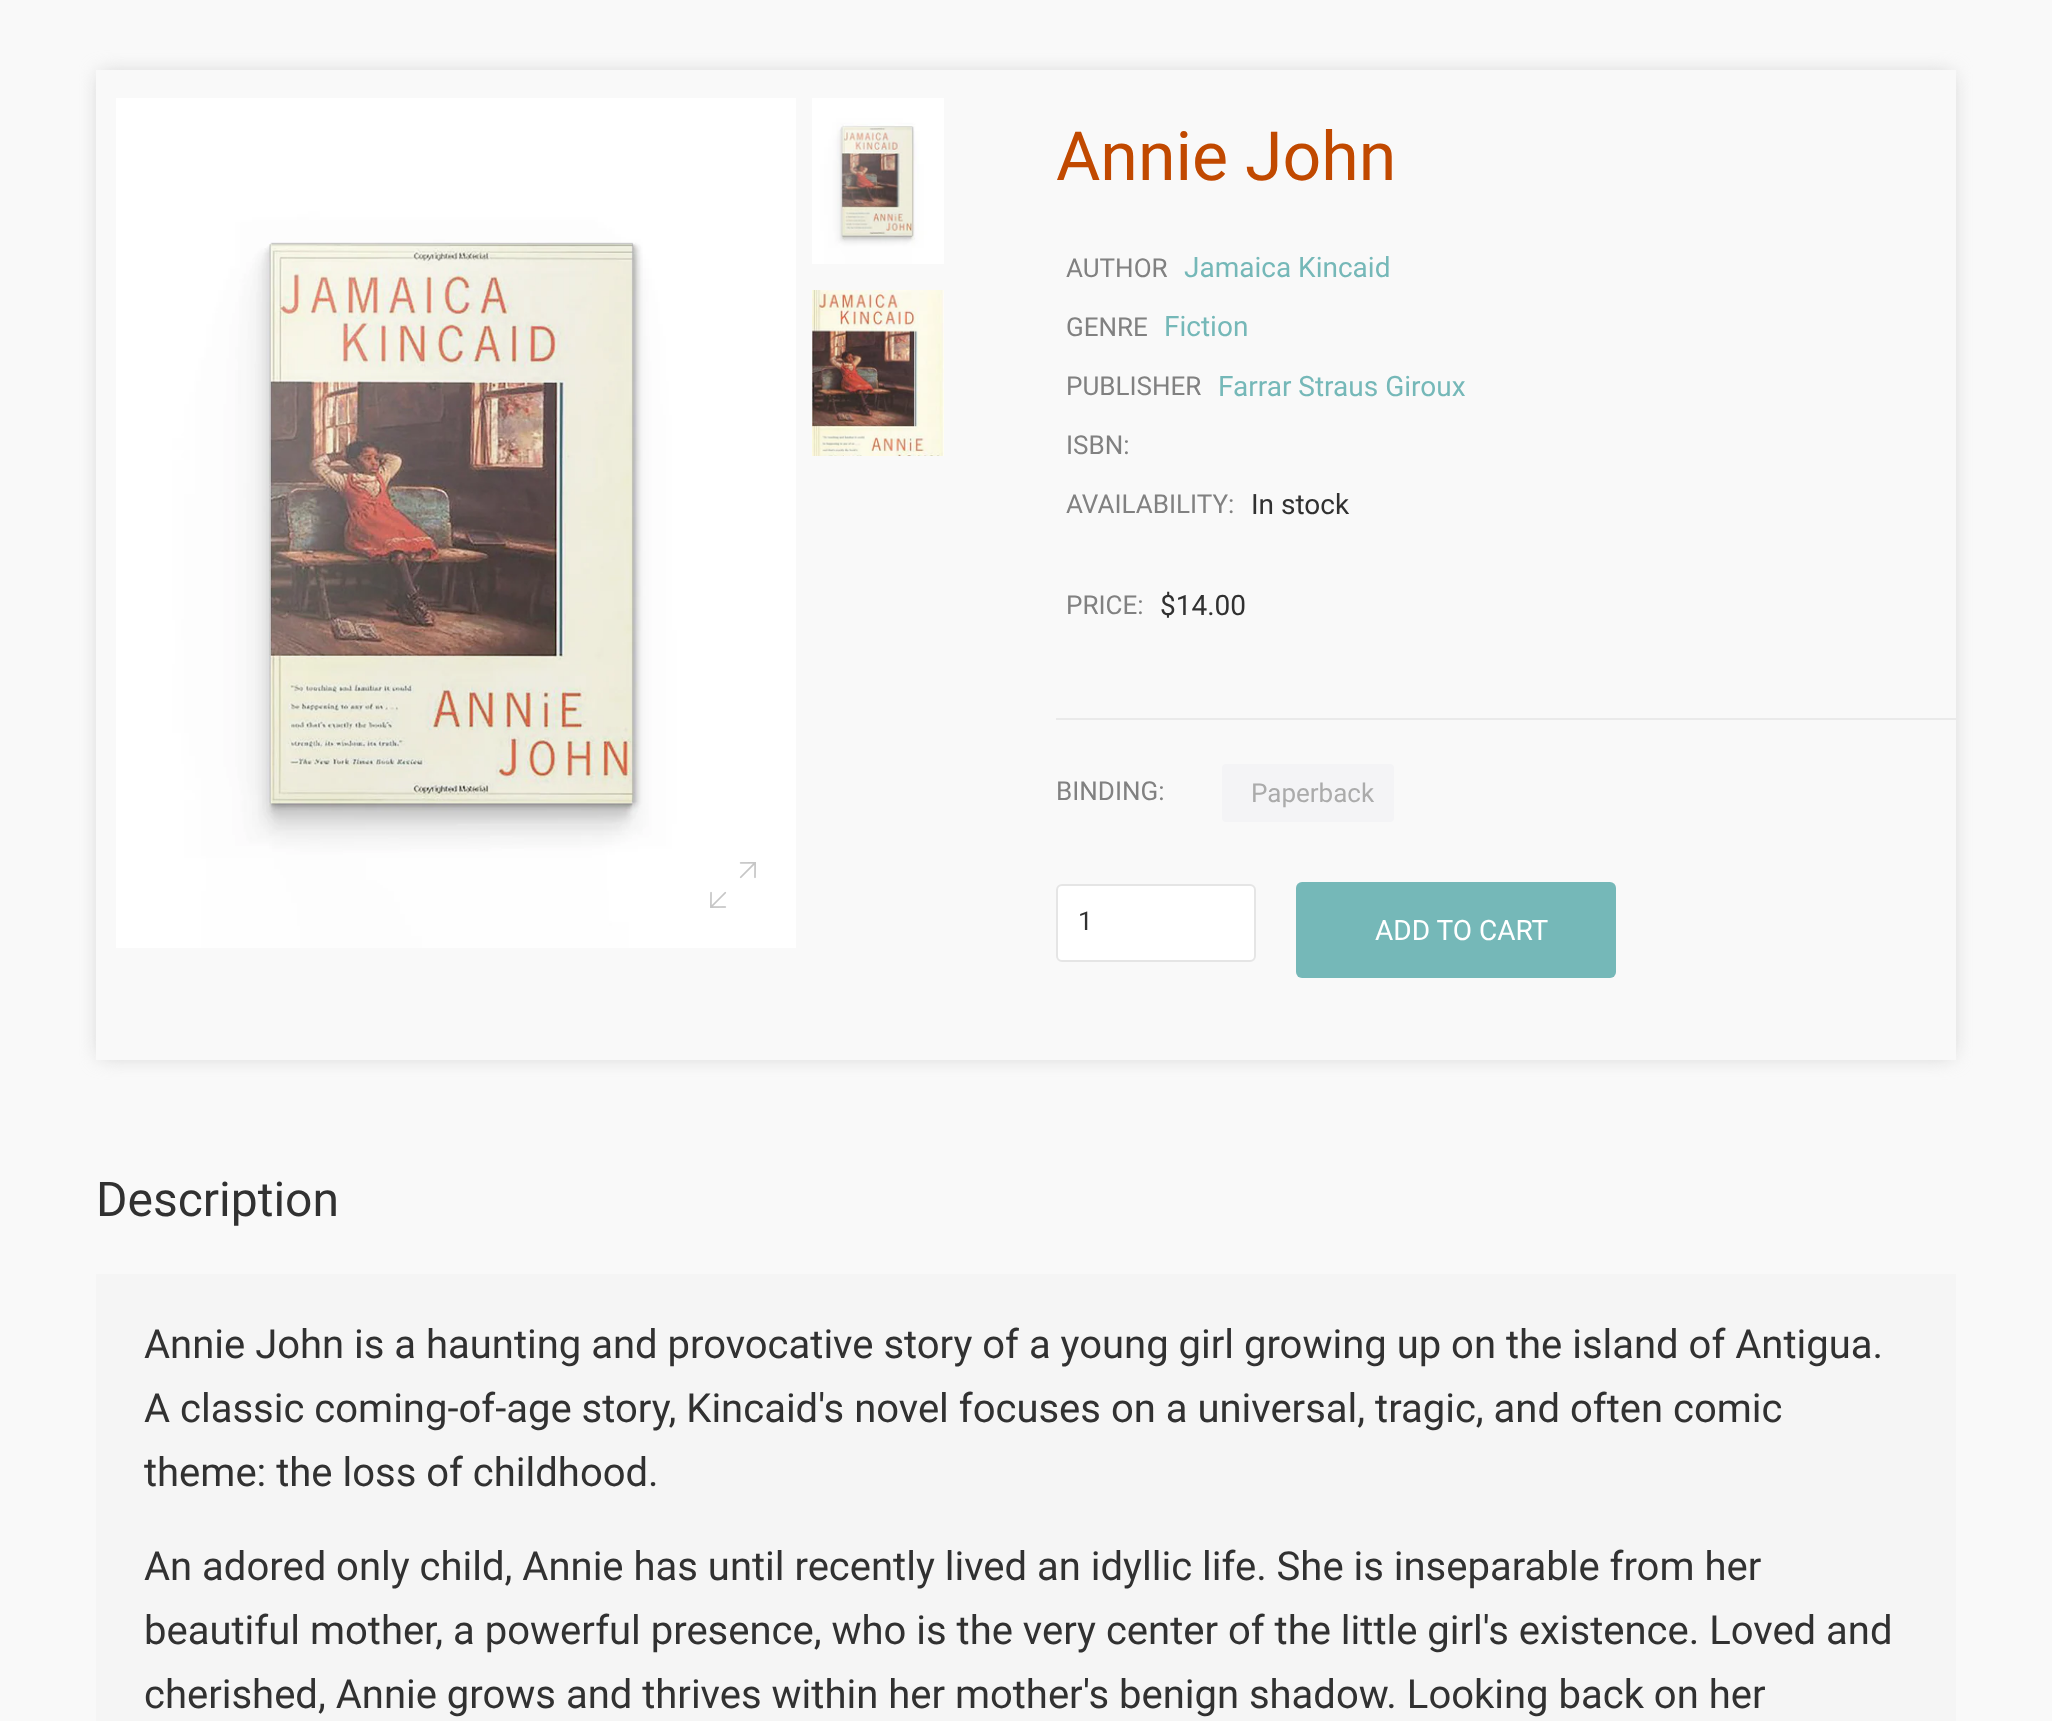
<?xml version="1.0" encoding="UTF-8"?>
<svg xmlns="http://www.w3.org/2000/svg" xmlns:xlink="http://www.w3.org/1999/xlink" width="2052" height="1721">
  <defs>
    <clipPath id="clip1"><path d="M 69 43 h 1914 v 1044 h -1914 z m 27 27 h 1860 v 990 h -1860 z" clip-rule="evenodd" /></clipPath>
  </defs>
  <rect width="100%" height="100%" fill="#f9f9f9" />
  <g clip-path="url(#clip1)">
    <rect x="100" y="74" width="1852" height="982" fill="#cccccc" filter="blur(10px)" />
  </g>
  <image x="116" y="98" width="680" height="850" xlink:href="image1.png" />
  <image x="710" y="862" width="46" height="46" xlink:href="image2.png" />
  <image x="812" y="98" width="132" height="166" xlink:href="image3.png" />
  <image x="812" y="290" width="132" height="166" xlink:href="image4.png" />
  <rect x="1056" y="718" width="900" height="2" fill="#eaeaea" />
  <rect x="1222" y="764" width="172" height="58" rx="4" fill="#f4f4f6" />
  <rect x="1057" y="885" width="198" height="76" rx="5" fill="#ffffff" stroke="#e5e5e5" stroke-width="2" />
  <rect x="1296" y="882" width="320" height="96" rx="6" fill="#75b8b8" />
  <rect x="96" y="1274" width="1860" height="447" fill="#f5f5f5" />
  <text x="1056" y="180" style="font-family: Roboto; font-size: 68px; fill: #c14900">Annie John</text>
  <text x="1066" y="277" style="font-family: Roboto; font-size: 26px; fill: #818181">AUTHOR</text>
  <text x="1184" y="277" style="font-family: Roboto; font-size: 28px; fill: #75b8b8">Jamaica Kincaid</text>
  <text x="1066" y="336" style="font-family: Roboto; font-size: 26px; fill: #818181">GENRE</text>
  <text x="1164" y="336" style="font-family: Roboto; font-size: 28px; fill: #75b8b8">Fiction</text>
  <text x="1066" y="395" style="font-family: Roboto; font-size: 26px; fill: #818181">PUBLISHER</text>
  <text x="1218" y="396" style="font-family: Roboto; font-size: 28px; fill: #75b8b8">Farrar Straus Giroux</text>
  <text x="1066" y="454" style="font-family: Roboto; font-size: 26px; fill: #818181">ISBN:</text>
  <text x="1066" y="513" style="font-family: Roboto; font-size: 26px; fill: #818181">AVAILABILITY:</text>
  <text x="1251" y="514" style="font-family: Roboto; font-size: 28px; fill: #313131">In stock</text>
  <text x="1066" y="614" style="font-family: Roboto; font-size: 26px; fill: #818181">PRICE:</text>
  <text x="1160" y="615" style="font-family: Roboto; font-size: 28px; fill: #313131">$14.00</text>
  <text x="1056" y="800" style="font-family: Roboto; font-size: 26px; fill: #818181">BINDING:</text>
  <text x="1251" y="802" style="font-family: Roboto; font-size: 26px; fill: #ababab">Paperback</text>
  <text x="1078" y="930" style="font-family: Roboto; font-size: 26px; fill: #313131">1</text>
  <text x="1375" y="940" style="font-family: Roboto; font-size: 28px; fill: #ffffff">ADD TO CART</text>
  <text x="96" y="1216" style="font-family: Roboto; font-size: 48px; fill: #313131">Description</text>
  <text x="144" y="1358" style="font-family: Roboto; font-size: 40px; fill: #313131">Annie John is a haunting and provocative story of a young girl growing up on the island of Antigua.</text>
  <text x="144" y="1422" style="font-family: Roboto; font-size: 40px; fill: #313131">A classic coming-of-age story, Kincaid's novel focuses on a universal, tragic, and often comic</text>
  <text x="144" y="1486" style="font-family: Roboto; font-size: 40px; fill: #313131">theme: the loss of childhood.</text>
  <text x="144" y="1580" style="font-family: Roboto; font-size: 40px; fill: #313131">An adored only child, Annie has until recently lived an idyllic life. She is inseparable from her</text>
  <text x="144" y="1644" style="font-family: Roboto; font-size: 40px; fill: #313131">beautiful mother, a powerful presence, who is the very center of the little girl's existence. Loved and</text>
  <text x="144" y="1708" style="font-family: Roboto; font-size: 40px; fill: #313131">cherished, Annie grows and thrives within her mother's benign shadow. Looking back on her</text>
</svg>
